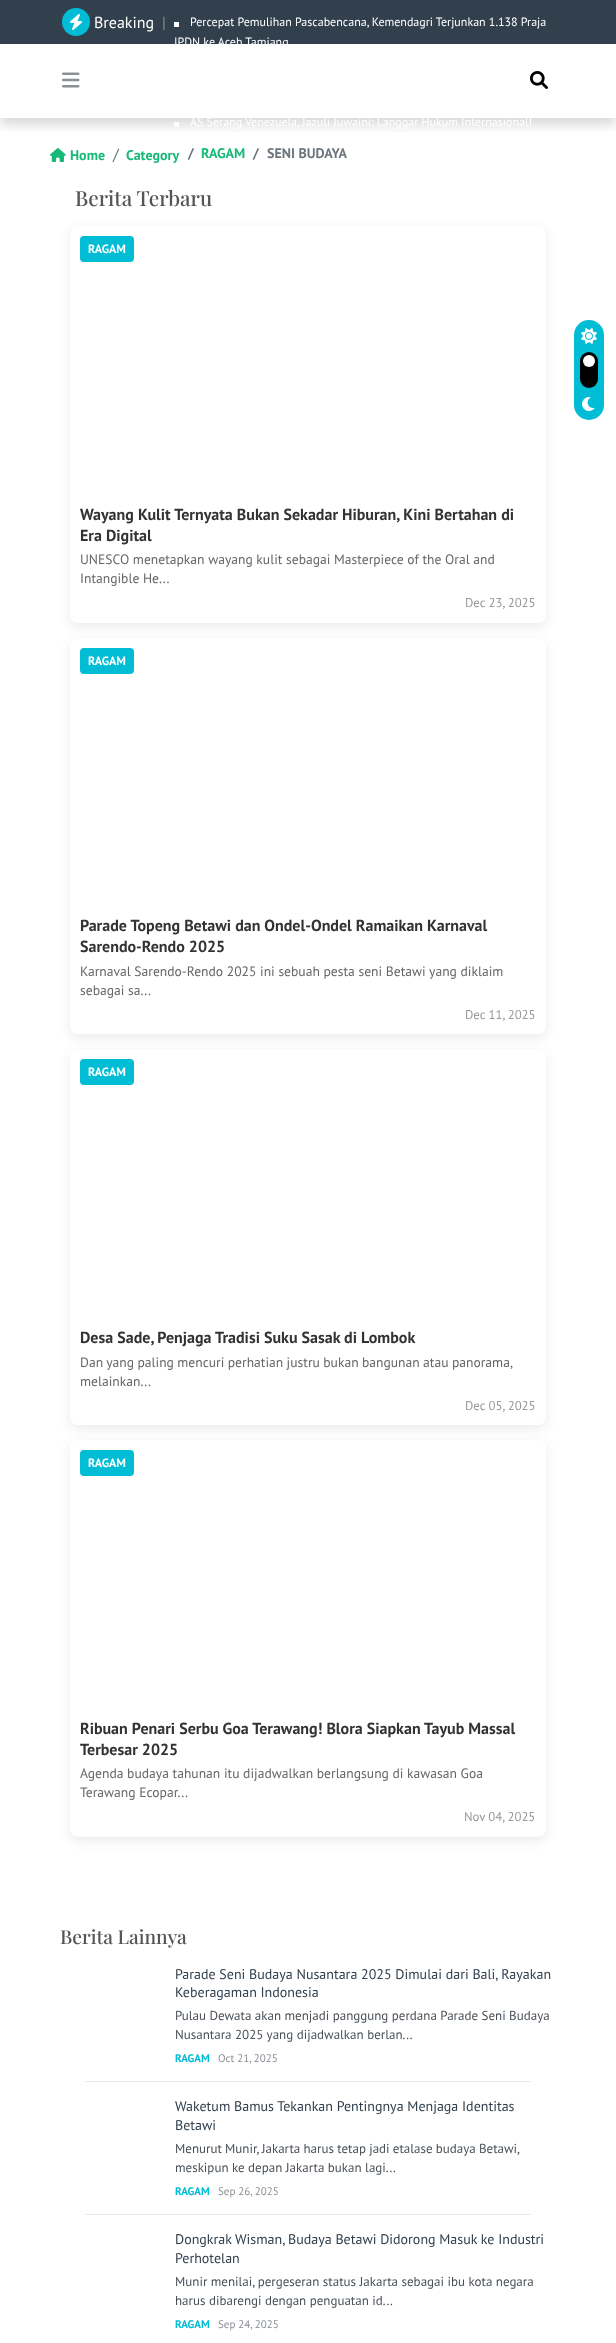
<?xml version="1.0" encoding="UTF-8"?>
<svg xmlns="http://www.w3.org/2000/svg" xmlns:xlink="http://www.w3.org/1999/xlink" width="616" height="2343">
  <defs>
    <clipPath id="clip1"><rect x="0" y="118" width="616" height="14" /></clipPath>
  </defs>
  <rect width="100%" height="100%" fill="#ffffff" />
  <rect width="616" height="44" fill="#32404d" />
  <g clip-path="url(#clip1)">
    <rect y="51" width="616" height="74" fill="#000000" fill-opacity="0.15" filter="blur(6px)" />
  </g>
  <circle cx="76" cy="22" r="14" fill="#00bcd5" />
  <image x="70" y="14" width="12" height="16" xlink:href="image1.png" />
  <rect x="174" y="22" width="5" height="5" fill="#ffffff" />
  <rect x="174" y="122" width="5" height="5" fill="#ffffff" />
  <image x="62" y="72" width="18" height="16" xlink:href="image2.png" />
  <image x="530" y="71" width="18" height="18" xlink:href="image3.png" />
  <image x="50" y="148" width="16" height="14" xlink:href="image4.png" />
  <rect x="70" y="230" width="476" height="397" rx="8" fill="#000000" fill-opacity="0.08" filter="blur(6px)" />
  <rect x="70" y="226" width="476" height="397" rx="8" fill="#ffffff" />
  <rect x="80" y="236" width="54" height="26" rx="4" fill="#00bcd5" />
  <rect x="70" y="642" width="476" height="396" rx="8" fill="#000000" fill-opacity="0.08" filter="blur(6px)" />
  <rect x="70" y="638" width="476" height="396" rx="8" fill="#ffffff" />
  <rect x="80" y="648" width="54" height="26" rx="4" fill="#00bcd5" />
  <rect x="70" y="1053" width="476" height="376" rx="8" fill="#000000" fill-opacity="0.08" filter="blur(6px)" />
  <rect x="70" y="1049" width="476" height="376" rx="8" fill="#ffffff" />
  <rect x="80" y="1059" width="54" height="26" rx="4" fill="#00bcd5" />
  <rect x="70" y="1444" width="476" height="397" rx="8" fill="#000000" fill-opacity="0.08" filter="blur(6px)" />
  <rect x="70" y="1440" width="476" height="397" rx="8" fill="#ffffff" />
  <rect x="80" y="1450" width="54" height="26" rx="4" fill="#00bcd5" />
  <rect x="85" y="2081" width="446" height="1" fill="#e9e9e9" />
  <rect x="85" y="2214" width="446" height="1" fill="#e9e9e9" />
  <rect x="574" y="320" width="30" height="100" rx="15" fill="#00bcd5" />
  <image x="581" y="328" width="16" height="16" xlink:href="image5.png" />
  <rect x="580" y="352" width="18" height="36" rx="9" fill="#000000" />
  <circle cx="589" cy="361" r="6" fill="#ffffff" />
  <image x="582" y="397" width="13" height="14" xlink:href="image6.png" />
  <text x="94" y="28" style="font-family: PT Sans; font-size: 16px; fill: #ffffff">Breaking</text>
  <text x="162" y="28" style="font-family: PT Sans; font-size: 16px; fill: #8a8f95">|</text>
  <text x="190" y="26" style="font-family: PT Sans; font-size: 12px; fill: #ffffff">Percepat Pemulihan Pascabencana, Kemendagri Terjunkan 1.138 Praja</text>
  <text x="174" y="46" style="font-family: PT Sans; font-size: 12px; fill: #ffffff">IPDN ke Aceh Tamiang</text>
  <text x="190" y="126" style="font-family: PT Sans; font-size: 12px; fill: #ffffff">AS Serang Venezuela, Jazuli Juwaini: Langgar Hukum Internasional!</text>
  <text x="70" y="160" style="font-family: PT Sans; font-size: 14px; font-weight: bold; fill: #17b978">Home</text>
  <text x="113" y="160" style="font-family: PT Sans; font-size: 16px; fill: #6c757d">/</text>
  <text x="126" y="160" style="font-family: PT Sans; font-size: 14px; font-weight: bold; fill: #17b978">Category</text>
  <text x="188" y="158" style="font-family: PT Sans; font-size: 14px; font-weight: bold; fill: #6c757d">/</text>
  <text x="201" y="158" style="font-family: PT Sans; font-size: 14px; font-weight: bold; fill: #17b978">RAGAM</text>
  <text x="253" y="158" style="font-family: PT Sans; font-size: 14px; font-weight: bold; fill: #6c757d">/</text>
  <text x="267" y="158" style="font-family: PT Sans; font-size: 14px; font-weight: bold; fill: #6c757d">SENI BUDAYA</text>
  <text x="75" y="206" style="font-family: Playfair Display; font-size: 20.75px; font-weight: 500; fill: #555555">Berita Terbaru</text>
  <text x="88" y="253" style="font-family: PT Sans; font-size: 12px; font-weight: bold; fill: #ffffff">RAGAM</text>
  <text x="80" y="520" style="font-family: PT Sans; font-size: 16px; font-weight: bold; fill: #333333">Wayang Kulit Ternyata Bukan Sekadar Hiburan, Kini Bertahan di</text>
  <text x="80" y="541" style="font-family: PT Sans; font-size: 16px; font-weight: bold; fill: #333333">Era Digital</text>
  <text x="80" y="564" style="font-family: PT Sans; font-size: 13.6px; fill: #666666">UNESCO menetapkan wayang kulit sebagai Masterpiece of the Oral and</text>
  <text x="80" y="583" style="font-family: PT Sans; font-size: 13.6px; fill: #666666">Intangible He...</text>
  <text x="465" y="607" style="font-family: PT Sans; font-size: 12.75px; fill: #999999">Dec 23, 2025</text>
  <text x="88" y="665" style="font-family: PT Sans; font-size: 12px; font-weight: bold; fill: #ffffff">RAGAM</text>
  <text x="80" y="931" style="font-family: PT Sans; font-size: 16px; font-weight: bold; fill: #333333">Parade Topeng Betawi dan Ondel-Ondel Ramaikan Karnaval</text>
  <text x="80" y="952" style="font-family: PT Sans; font-size: 16px; font-weight: bold; fill: #333333">Sarendo-Rendo 2025</text>
  <text x="80" y="976" style="font-family: PT Sans; font-size: 13.6px; fill: #666666">Karnaval Sarendo-Rendo 2025 ini sebuah pesta seni Betawi yang diklaim</text>
  <text x="80" y="995" style="font-family: PT Sans; font-size: 13.6px; fill: #666666">sebagai sa...</text>
  <text x="465" y="1019" style="font-family: PT Sans; font-size: 12.75px; fill: #999999">Dec 11, 2025</text>
  <text x="88" y="1076" style="font-family: PT Sans; font-size: 12px; font-weight: bold; fill: #ffffff">RAGAM</text>
  <text x="80" y="1343" style="font-family: PT Sans; font-size: 16px; font-weight: bold; fill: #333333">Desa Sade, Penjaga Tradisi Suku Sasak di Lombok</text>
  <text x="80" y="1367" word-spacing="-0.25" style="font-family: PT Sans; font-size: 13.6px; fill: #666666">Dan yang paling mencuri perhatian justru bukan bangunan atau panorama,</text>
  <text x="80" y="1386" style="font-family: PT Sans; font-size: 13.6px; fill: #666666">melainkan...</text>
  <text x="465" y="1410" style="font-family: PT Sans; font-size: 12.75px; fill: #999999">Dec 05, 2025</text>
  <text x="88" y="1467" style="font-family: PT Sans; font-size: 12px; font-weight: bold; fill: #ffffff">RAGAM</text>
  <text x="80" y="1734" style="font-family: PT Sans; font-size: 16px; font-weight: bold; fill: #333333">Ribuan Penari Serbu Goa Terawang! Blora Siapkan Tayub Massal</text>
  <text x="80" y="1755" style="font-family: PT Sans; font-size: 16px; font-weight: bold; fill: #333333">Terbesar 2025</text>
  <text x="80" y="1778" style="font-family: PT Sans; font-size: 13.6px; fill: #666666">Agenda budaya tahunan itu dijadwalkan berlangsung di kawasan Goa</text>
  <text x="80" y="1797" style="font-family: PT Sans; font-size: 13.6px; fill: #666666">Terawang Ecopar...</text>
  <text x="464" y="1821" style="font-family: PT Sans; font-size: 12.75px; fill: #999999">Nov 04, 2025</text>
  <text x="60" y="1944" style="font-family: Playfair Display; font-size: 19.25px; font-weight: 500; fill: #555555">Berita Lainnya</text>
  <text x="175" y="1979" style="font-family: PT Sans; font-size: 14px; fill: #32404d">Parade Seni Budaya Nusantara 2025 Dimulai dari Bali, Rayakan</text>
  <text x="175" y="1997" style="font-family: PT Sans; font-size: 14px; fill: #32404d">Keberagaman Indonesia</text>
  <text x="175" y="2020" style="font-family: PT Sans; font-size: 13px; fill: #495057">Pulau Dewata akan menjadi panggung perdana Parade Seni Budaya</text>
  <text x="175" y="2039" style="font-family: PT Sans; font-size: 13px; fill: #495057">Nusantara 2025 yang dijadwalkan berlan...</text>
  <text x="175" y="2062" style="font-family: PT Sans; font-size: 11px; font-weight: bold; fill: #00bcd5">RAGAM</text>
  <text x="218" y="2062" style="font-family: PT Sans; font-size: 11px; fill: #8a8f95">Oct 21, 2025</text>
  <text x="175" y="2111" style="font-family: PT Sans; font-size: 14px; fill: #32404d">Waketum Bamus Tekankan Pentingnya Menjaga Identitas</text>
  <text x="175" y="2130" style="font-family: PT Sans; font-size: 14px; fill: #32404d">Betawi</text>
  <text x="175" y="2153" word-spacing="-0.25" style="font-family: PT Sans; font-size: 13px; fill: #495057">Menurut Munir, Jakarta harus tetap jadi etalase budaya Betawi,</text>
  <text x="175" y="2172" style="font-family: PT Sans; font-size: 13px; fill: #495057">meskipun ke depan Jakarta bukan lagi...</text>
  <text x="175" y="2195" style="font-family: PT Sans; font-size: 11px; font-weight: bold; fill: #00bcd5">RAGAM</text>
  <text x="218" y="2195" style="font-family: PT Sans; font-size: 11px; fill: #8a8f95">Sep 26, 2025</text>
  <text x="175" y="2244" style="font-family: PT Sans; font-size: 14px; fill: #32404d">Dongkrak Wisman, Budaya Betawi Didorong Masuk ke Industri</text>
  <text x="175" y="2263" style="font-family: PT Sans; font-size: 14px; fill: #32404d">Perhotelan</text>
  <text x="175" y="2286" style="font-family: PT Sans; font-size: 13px; fill: #495057">Munir menilai, pergeseran status Jakarta sebagai ibu kota negara</text>
  <text x="175" y="2305" style="font-family: PT Sans; font-size: 13px; fill: #495057">harus dibarengi dengan penguatan id...</text>
  <text x="175" y="2328" style="font-family: PT Sans; font-size: 11px; font-weight: bold; fill: #00bcd5">RAGAM</text>
  <text x="218" y="2328" style="font-family: PT Sans; font-size: 11px; fill: #8a8f95">Sep 24, 2025</text>
</svg>
